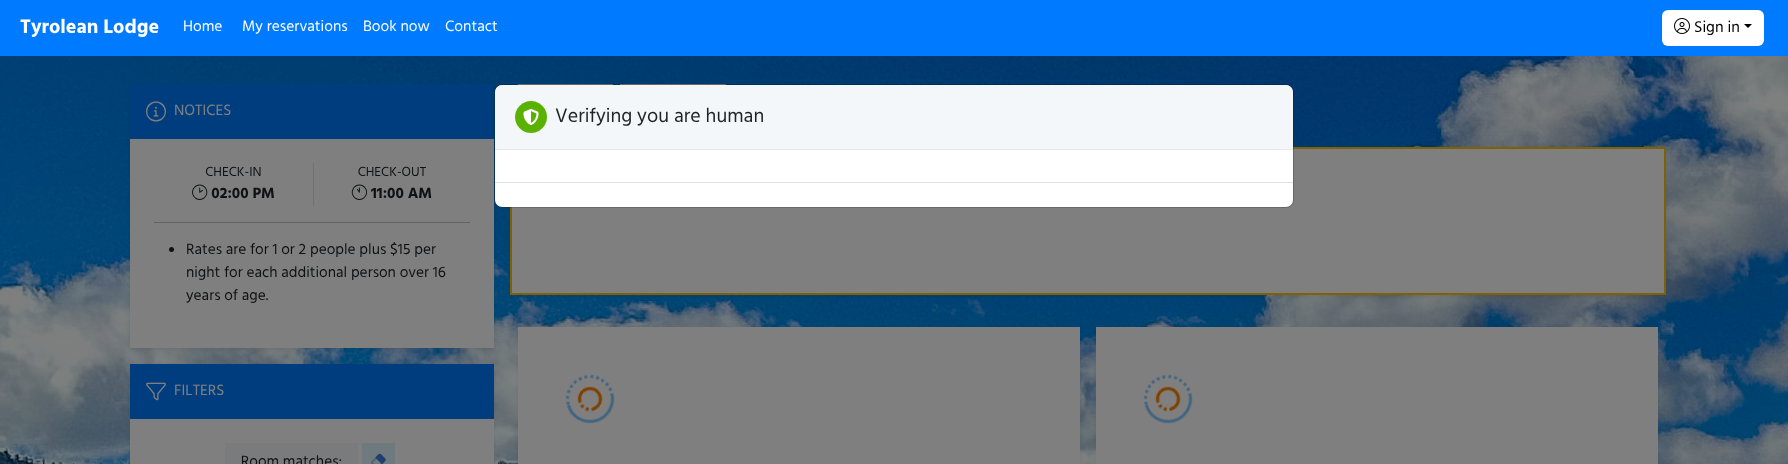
<?xml version="1.0" encoding="UTF-8"?>
<svg xmlns="http://www.w3.org/2000/svg" xmlns:xlink="http://www.w3.org/1999/xlink" width="1788" height="464">
  <rect width="100%" height="100%" fill="#ffffff" />
  <rect width="1788" height="56" fill="#007bff" />
  <rect x="1662" y="10" width="102" height="36" rx="6" fill="#ffffff" />
  <image x="1674" y="18" width="16" height="16" xlink:href="image1.png" />
  <path d="M 1744 24 h 8 l -4 4 z" fill="#000000" />
  <image x="0" y="56" width="1788" height="408" xlink:href="image2.png" />
  <text x="20" y="33" style="font-family: Hind; font-size: 20px; font-weight: bold; fill: #ffffff">Tyrolean Lodge</text>
  <text x="183" y="31" style="font-family: Hind; font-size: 15.5px; fill: #ffffff">Home</text>
  <text x="242" y="31" style="font-family: Hind; font-size: 15.5px; fill: #ffffff">My reservations</text>
  <text x="363" y="31" style="font-family: Hind; font-size: 15.5px; fill: #ffffff">Book now</text>
  <text x="445" y="31" style="font-family: Hind; font-size: 15.5px; fill: #ffffff">Contact</text>
  <text x="1694" y="32" style="font-family: Hind; font-size: 16px; fill: #000000">Sign in</text>
</svg>
